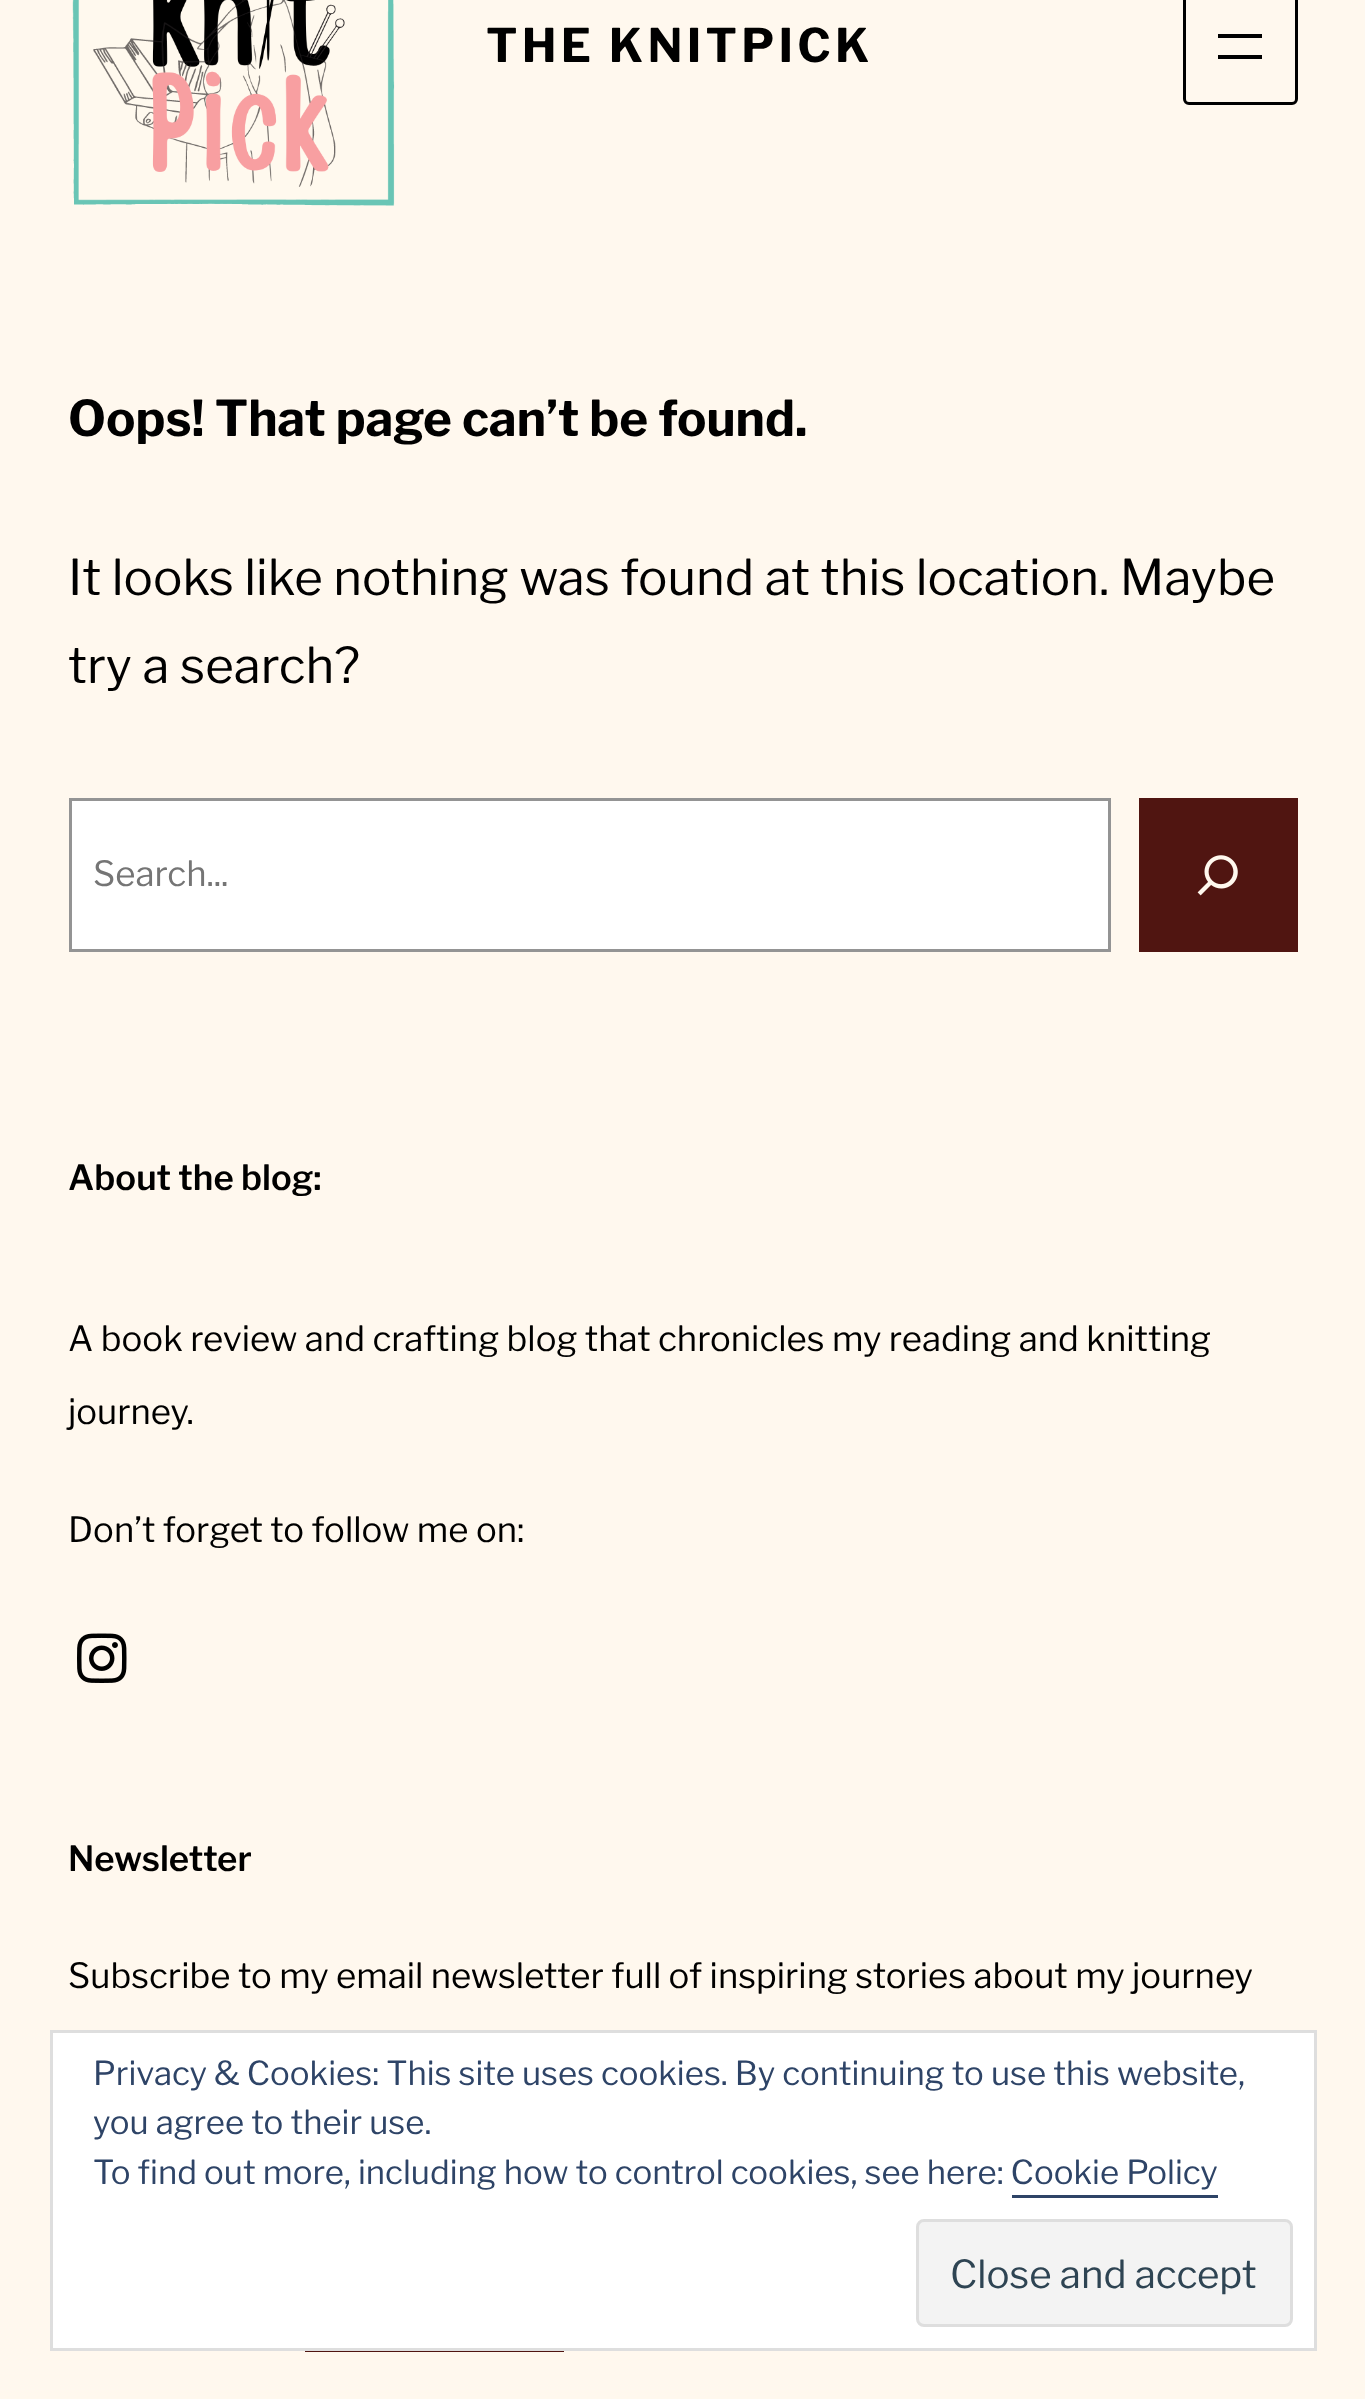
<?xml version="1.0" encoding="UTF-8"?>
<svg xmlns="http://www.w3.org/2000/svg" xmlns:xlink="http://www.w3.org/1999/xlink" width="1365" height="2399">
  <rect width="100%" height="100%" fill="#fff8ee" />
  <image x="72" y="0" width="323" height="206" xlink:href="image1.png" />
  <rect x="1184.5" y="-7.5" width="112" height="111" rx="4.5" fill="none" stroke="#000000" stroke-width="3" />
  <rect x="1218" y="34" width="44" height="4" fill="#000000" />
  <rect x="1218" y="55" width="44" height="4" fill="#000000" />
  <rect x="70.5" y="799.5" width="1039" height="151" fill="#ffffff" stroke="#949494" stroke-width="3" />
  <rect x="1139" y="798" width="159" height="154" fill="#501511" />
  <image x="1197" y="855" width="41" height="41" xlink:href="image2.png" />
  <image x="77" y="1633" width="50" height="50" xlink:href="image3.png" />
  <rect x="305" y="2351" width="259" height="1" fill="#501511" />
  <rect x="51.5" y="2031.5" width="1264" height="318" fill="#ffffff" stroke="#dedede" stroke-width="3" />
  <rect x="1012" y="2195" width="206" height="3" fill="#2e4467" />
  <rect x="917.5" y="2220.5" width="374" height="105" rx="6.5" fill="#f3f3f3" stroke="#dedede" stroke-width="3" />
  <text x="486" y="62" style="font-family: Libre Franklin; font-size: 46.25px; font-weight: bold; letter-spacing: 4.2px; fill: #000000">THE KNITPICK</text>
  <text x="68" y="436" style="font-family: Libre Franklin; font-size: 49.2px; font-weight: bold; fill: #000000">Oops! That page can’t be found.</text>
  <text x="68" y="595" style="font-family: Libre Franklin; font-size: 49.2px; fill: #000000">It looks like nothing was found at this location. Maybe</text>
  <text x="68" y="683" style="font-family: Libre Franklin; font-size: 49.2px; fill: #000000">try a search?</text>
  <text x="93" y="886" style="font-family: Libre Franklin; font-size: 34.75px; fill: #757575">Search...</text>
  <text x="68" y="1190" style="font-family: Libre Franklin; font-size: 34.75px; font-weight: 600; fill: #000000">About the blog:</text>
  <text x="68" y="1351" style="font-family: Libre Franklin; font-size: 34.75px; fill: #000000">A book review and crafting blog that chronicles my reading and knitting</text>
  <text x="68" y="1424" style="font-family: Libre Franklin; font-size: 34.75px; fill: #000000">journey.</text>
  <text x="68" y="1542" style="font-family: Libre Franklin; font-size: 34.75px; fill: #000000">Don’t forget to follow me on:</text>
  <text x="68" y="1871" style="font-family: Libre Franklin; font-size: 34.75px; font-weight: 600; fill: #000000">Newsletter</text>
  <text x="68" y="1988" style="font-family: Libre Franklin; font-size: 34.75px; fill: #000000">Subscribe to my email newsletter full of inspiring stories about my journey</text>
  <text x="93" y="2085" style="font-family: Libre Franklin; font-size: 33px; fill: #2e4467">Privacy &amp; Cookies: This site uses cookies. By continuing to use this website,</text>
  <text x="93" y="2134" style="font-family: Libre Franklin; font-size: 33px; fill: #2e4467">you agree to their use.</text>
  <text x="93" y="2184" style="font-family: Libre Franklin; font-size: 33px; fill: #2e4467">To find out more, including how to control cookies, see here: Cookie Policy</text>
  <text x="950" y="2288" style="font-family: Libre Franklin; font-size: 38.5px; fill: #2e4453">Close and accept</text>
</svg>
